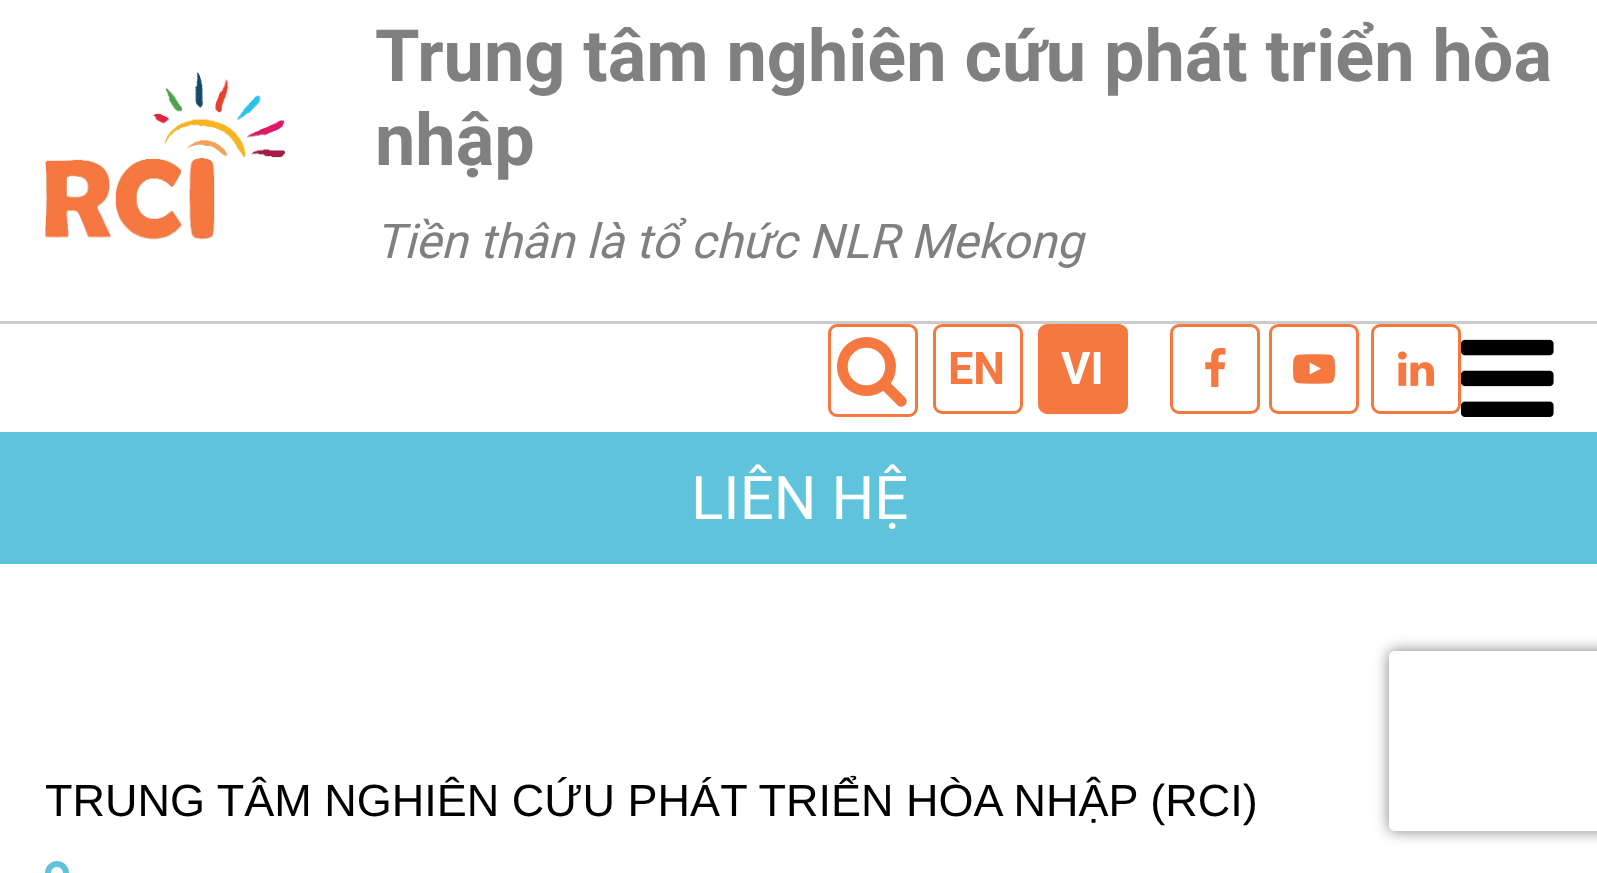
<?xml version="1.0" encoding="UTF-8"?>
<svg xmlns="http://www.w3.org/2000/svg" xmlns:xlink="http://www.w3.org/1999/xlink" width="1597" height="873">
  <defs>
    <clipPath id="clip1"><path d="M 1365 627 h 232 v 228 h -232 z m 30 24 h 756 c 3.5 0 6 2.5 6 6 v 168 c 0 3.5 -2.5 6 -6 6 h -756 c -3.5 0 -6 -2.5 -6 -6 v -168 c 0 -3.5 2.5 -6 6 -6 z" clip-rule="evenodd" /></clipPath>
  </defs>
  <rect width="100%" height="100%" fill="#ffffff" />
  <rect y="321" width="1597" height="3" fill="#cccccc" />
  <image x="45" y="72" width="240" height="168" xlink:href="image1.png" />
  <rect x="829.5" y="325.5" width="87" height="90" rx="7.5" fill="none" stroke="#f57840" stroke-width="3" />
  <image x="837" y="337" width="70" height="70" xlink:href="image2.png" />
  <rect x="934.5" y="325.5" width="87" height="87" rx="7.5" fill="none" stroke="#f57840" stroke-width="3" />
  <rect x="1039.5" y="325.5" width="87" height="87" rx="7.5" fill="#f57840" stroke="#f57840" stroke-width="3" />
  <rect x="1171.5" y="325.5" width="87" height="87" rx="7.5" fill="none" stroke="#f57840" stroke-width="3" />
  <image x="1205" y="348" width="21" height="39" xlink:href="image3.png" />
  <rect x="1270.5" y="325.5" width="87" height="87" rx="7.5" fill="none" stroke="#f57840" stroke-width="3" />
  <image x="1293" y="354" width="42" height="30" xlink:href="image4.png" />
  <rect x="1372.5" y="325.5" width="87" height="87" rx="7.5" fill="none" stroke="#f57840" stroke-width="3" />
  <image x="1398" y="351" width="36" height="35" xlink:href="image5.png" />
  <image x="1461" y="339" width="93" height="78" xlink:href="image6.png" />
  <rect y="432" width="1597" height="132" fill="#5fc3db" />
  <image x="45" y="861" width="24" height="12" xlink:href="image7.png" />
  <g clip-path="url(#clip1)">
    <rect x="1389" y="651" width="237" height="180" rx="6" fill="#808080" filter="blur(7.5px)" />
  </g>
  <text x="375" y="81" style="font-family: Roboto; font-size: 72px; font-weight: bold; fill: #808080">Trung tâm nghiên cứu phát triển hòa</text>
  <text x="375" y="165" style="font-family: Roboto; font-size: 72px; font-weight: bold; fill: #808080">nhập</text>
  <text x="375" y="258" style="font-family: Roboto; font-size: 48px; font-style: italic; fill: #808080">Tiền thân là tổ chức NLR Mekong</text>
  <text x="948" y="384" style="font-family: Roboto; font-size: 45px; font-weight: bold; fill: #f57840">EN</text>
  <text x="1061" y="384" style="font-family: Roboto; font-size: 45px; font-weight: bold; fill: #ffffff">VI</text>
  <text x="691" y="519" style="font-family: Roboto; font-size: 60px; fill: #ffffff">LIÊN HỆ</text>
  <text x="45" y="816" style="font-family: Liberation Sans; font-size: 45px; fill: #000000">TRUNG TÂM NGHIÊN CỨU PHÁT TRIỂN HÒA NHẬP (RCI)</text>
</svg>
